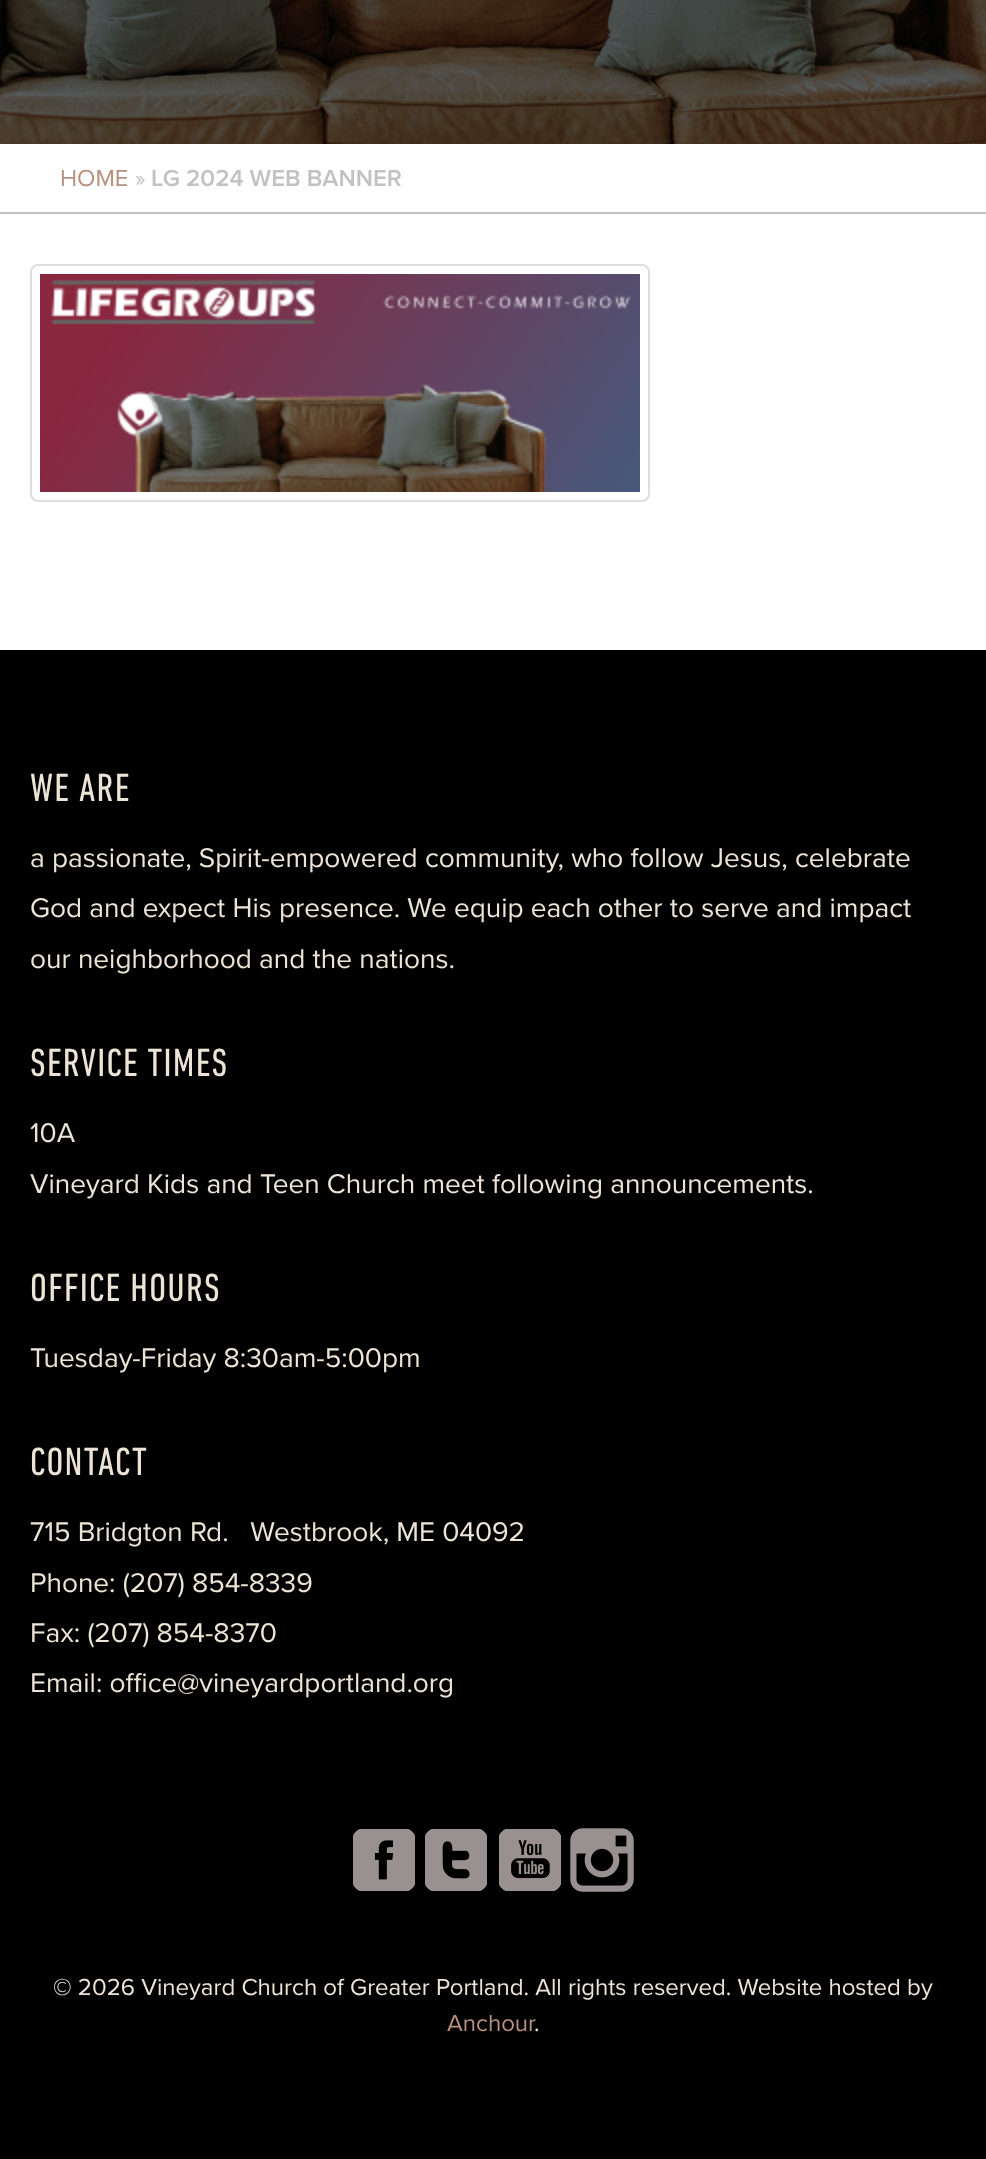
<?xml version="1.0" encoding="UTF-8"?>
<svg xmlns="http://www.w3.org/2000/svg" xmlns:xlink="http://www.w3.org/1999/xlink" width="986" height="2159">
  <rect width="100%" height="100%" fill="#ffffff" />
  <image x="0" y="0" width="986" height="144" xlink:href="image1.png" />
  <rect y="212" width="986" height="2" fill="#c2c2c2" />
  <rect x="31" y="265" width="618" height="236" rx="7" fill="none" stroke="#dddddd" stroke-width="2" />
  <image x="40" y="274" width="600" height="218" xlink:href="image2.png" />
  <rect y="650" width="986" height="1509" fill="#000000" />
  <image x="353" y="1829" width="62" height="62" xlink:href="image3.png" />
  <image x="425" y="1829" width="62" height="62" xlink:href="image4.png" />
  <image x="499" y="1829" width="62" height="62" xlink:href="image5.png" />
  <image x="570" y="1828" width="64" height="64" xlink:href="image6.png" />
  <text x="60" y="186" style="font-family: Proxima Nova; font-size: 24px; fill: #b79080">HOME</text>
  <text x="135" y="186" style="font-family: Proxima Nova; font-size: 24px; fill: #c2c2c2">»</text>
  <text x="151" y="186" style="font-family: Proxima Nova; font-size: 24px; font-weight: 600; fill: #c2c2c2">LG 2024 WEB BANNER</text>
  <text x="30" y="801" style="font-family: DIN Next; font-size: 40px; letter-spacing: 1.25px; fill: #ece4d6">WE ARE</text>
  <text x="30" y="867" style="font-family: Proxima Nova; font-size: 28px; fill: #ece4d6">a passionate, Spirit-empowered community, who follow Jesus, celebrate</text>
  <text x="30" y="917" style="font-family: Proxima Nova; font-size: 28px; fill: #ece4d6">God and expect His presence. We equip each other to serve and impact</text>
  <text x="30" y="968" style="font-family: Proxima Nova; font-size: 28px; fill: #ece4d6">our neighborhood and the nations.</text>
  <text x="30" y="1076" style="font-family: DIN Next; font-size: 40px; letter-spacing: 1.25px; fill: #ece4d6">SERVICE TIMES</text>
  <text x="30" y="1142" style="font-family: Proxima Nova; font-size: 28px; fill: #ece4d6">10A</text>
  <text x="30" y="1193" style="font-family: Proxima Nova; font-size: 28px; fill: #ece4d6">Vineyard Kids and Teen Church meet following announcements.</text>
  <text x="30" y="1301" style="font-family: DIN Next; font-size: 40px; letter-spacing: 1.25px; fill: #ece4d6">OFFICE HOURS</text>
  <text x="30" y="1367" style="font-family: Proxima Nova; font-size: 28px; fill: #ece4d6">Tuesday-Friday 8:30am-5:00pm</text>
  <text x="30" y="1475" style="font-family: DIN Next; font-size: 40px; letter-spacing: 1.25px; fill: #ece4d6">CONTACT</text>
  <text x="30" y="1541" style="font-family: Proxima Nova; font-size: 28px; fill: #ece4d6" xml:space="preserve">715 Bridgton Rd.   Westbrook, ME 04092</text>
  <text x="30" y="1592" style="font-family: Proxima Nova; font-size: 28px; fill: #ece4d6">Phone: (207) 854-8339</text>
  <text x="30" y="1642" style="font-family: Proxima Nova; font-size: 28px; fill: #ece4d6">Fax: (207) 854-8370</text>
  <text x="30" y="1692" style="font-family: Proxima Nova; font-size: 28px; fill: #ece4d6">Email: office@vineyardportland.org</text>
  <text x="53" y="1995" style="font-family: Proxima Nova; font-size: 24px; fill: #ece4d6">© 2026 Vineyard Church of Greater Portland. All rights reserved. Website hosted by</text>
  <text x="447" y="2031" style="font-family: Proxima Nova; font-size: 24px; fill: #b79080">Anchour</text>
  <text x="534" y="2031" style="font-family: Proxima Nova; font-size: 24px; fill: #ece4d6">.</text>
</svg>
